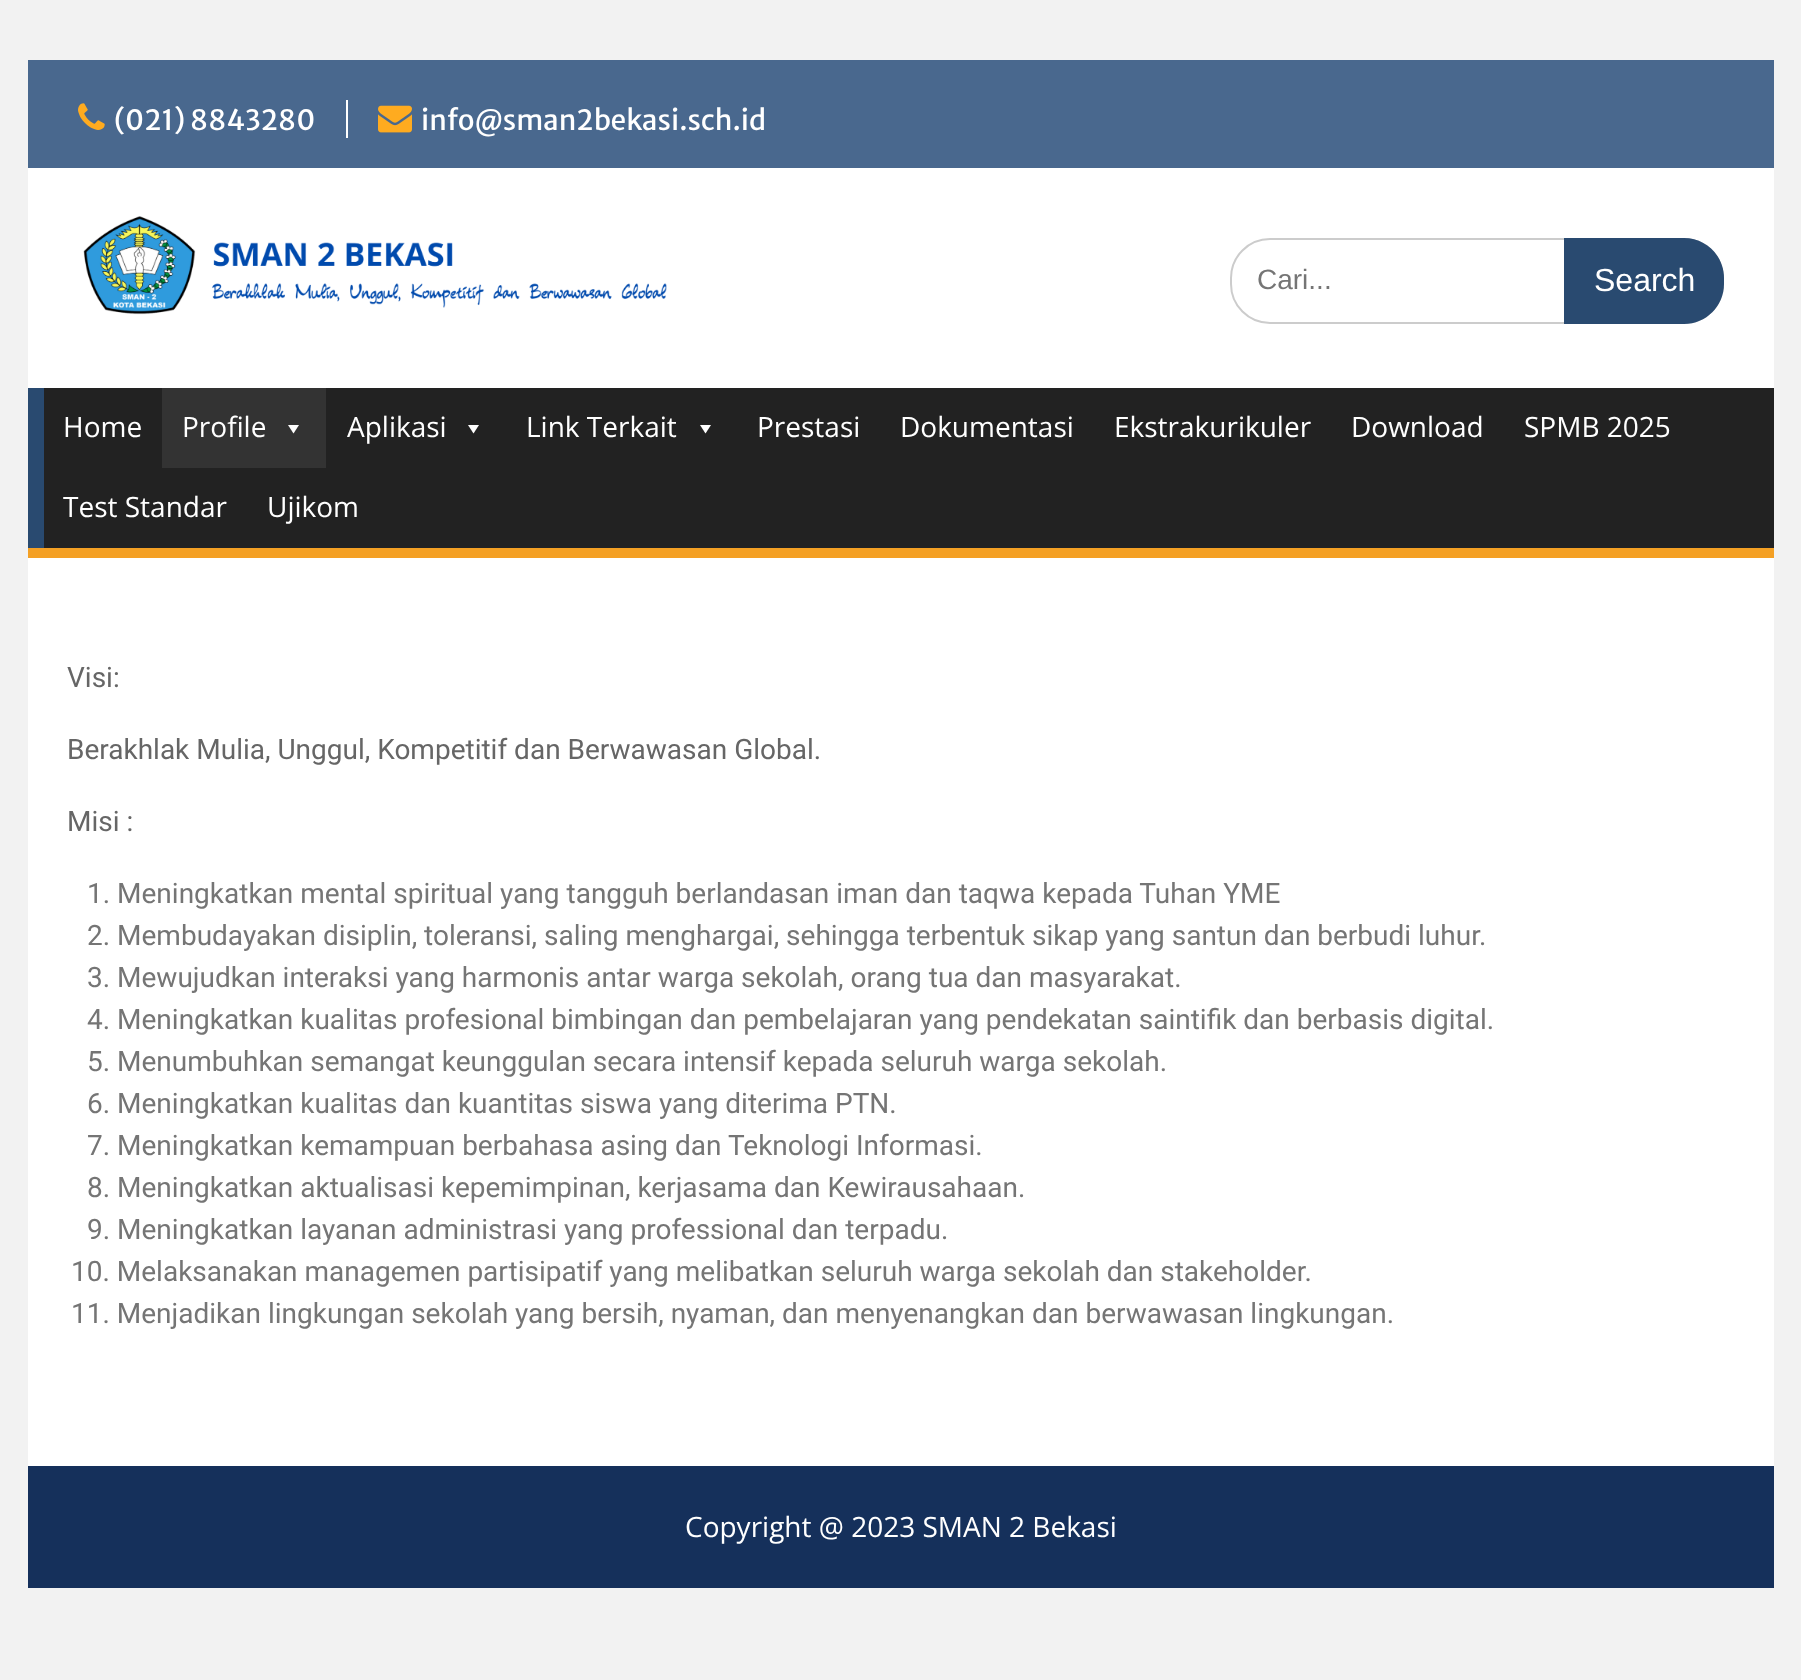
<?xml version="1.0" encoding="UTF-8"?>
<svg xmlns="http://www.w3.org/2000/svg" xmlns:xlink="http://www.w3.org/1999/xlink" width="1801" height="1680">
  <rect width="100%" height="100%" fill="#f2f2f2" />
  <rect x="28" y="168" width="1746" height="1298" fill="#ffffff" />
  <rect x="28" y="60" width="1746" height="108" fill="#49688e" />
  <image x="78" y="103" width="27" height="27" xlink:href="image1.png" />
  <rect x="346" y="100" width="2" height="38" fill="#ffffff" />
  <image x="378" y="105" width="34" height="28" xlink:href="image2.png" />
  <image x="83" y="216" width="584" height="99" xlink:href="image3.png" />
  <rect x="1231" y="239" width="492" height="84" rx="39" fill="none" stroke="#cccccc" stroke-width="2" />
  <path d="M 1564 238 h 120 c 22 0 40 18 40 40 v 6 c 0 22 -18 40 -40 40 h -120 z" fill="#294a70" />
  <rect x="28" y="388" width="16" height="160" fill="#294a70" />
  <rect x="28" y="548" width="1746" height="10" fill="#f4a024" />
  <rect x="44" y="388" width="1730" height="160" fill="#222222" />
  <rect x="162" y="388" width="164" height="80" fill="#333333" />
  <path d="M 299 425 l -5.5 8.5 l -5.5 -8.5 z" fill="#ffffff" />
  <path d="M 479 425 l -5.5 8.5 l -5.5 -8.5 z" fill="#ffffff" />
  <path d="M 711 425 l -5.5 8.5 l -5.5 -8.5 z" fill="#ffffff" />
  <rect x="28" y="1466" width="1746" height="122" fill="#15305b" />
  <text x="114" y="130" style="font-family: Merriweather Sans; font-size: 28px; fill: #ffffff">(021) 8843280</text>
  <text x="421" y="130" style="font-family: Merriweather Sans; font-size: 28px; fill: #ffffff">info@sman2bekasi.sch.id</text>
  <text x="1257" y="289" style="font-family: Liberation Sans; font-size: 28px; fill: #757575">Cari...</text>
  <text x="1594" y="291" style="font-family: Liberation Sans; font-size: 32px; fill: #ffffff">Search</text>
  <text x="63" y="437" style="font-family: Open Sans; font-size: 28px; fill: #ffffff">Home</text>
  <text x="182" y="437" style="font-family: Open Sans; font-size: 28px; fill: #ffffff">Profile</text>
  <text x="347" y="437" style="font-family: Open Sans; font-size: 28px; fill: #ffffff">Aplikasi</text>
  <text x="526" y="437" style="font-family: Open Sans; font-size: 28px; fill: #ffffff">Link Terkait</text>
  <text x="757" y="437" style="font-family: Open Sans; font-size: 28px; fill: #ffffff">Prestasi</text>
  <text x="900" y="437" style="font-family: Open Sans; font-size: 28px; fill: #ffffff">Dokumentasi</text>
  <text x="1114" y="437" style="font-family: Open Sans; font-size: 28px; fill: #ffffff">Ekstrakurikuler</text>
  <text x="1351" y="437" style="font-family: Open Sans; font-size: 28px; fill: #ffffff">Download</text>
  <text x="1524" y="437" style="font-family: Open Sans; font-size: 28px; fill: #ffffff">SPMB 2025</text>
  <text x="63" y="517" style="font-family: Open Sans; font-size: 28px; fill: #ffffff">Test Standar</text>
  <text x="267" y="517" style="font-family: Open Sans; font-size: 28px; fill: #ffffff">Ujikom</text>
  <text x="67" y="687" style="font-family: Roboto; font-size: 28px; fill: #666666">Visi:</text>
  <text x="67" y="759" style="font-family: Roboto; font-size: 28px; fill: #666666">Berakhlak Mulia, Unggul, Kompetitif dan Berwawasan Global.</text>
  <text x="67" y="831" style="font-family: Roboto; font-size: 28px; fill: #666666">Misi :</text>
  <text x="87" y="903" style="font-family: Roboto; font-size: 28px; fill: #757575">1. Meningkatkan mental spiritual yang tangguh berlandasan iman dan taqwa kepada Tuhan YME</text>
  <text x="87" y="945" style="font-family: Roboto; font-size: 28px; fill: #757575">2. Membudayakan disiplin, toleransi, saling menghargai, sehingga terbentuk sikap yang santun dan berbudi luhur.</text>
  <text x="87" y="987" style="font-family: Roboto; font-size: 28px; fill: #757575">3. Mewujudkan interaksi yang harmonis antar warga sekolah, orang tua dan masyarakat.</text>
  <text x="87" y="1029" style="font-family: Roboto; font-size: 28px; fill: #757575">4. Meningkatkan kualitas profesional bimbingan dan pembelajaran yang pendekatan saintifik dan berbasis digital.</text>
  <text x="87" y="1071" style="font-family: Roboto; font-size: 28px; fill: #757575">5. Menumbuhkan semangat keunggulan secara intensif kepada seluruh warga sekolah.</text>
  <text x="87" y="1113" style="font-family: Roboto; font-size: 28px; fill: #757575">6. Meningkatkan kualitas dan kuantitas siswa yang diterima PTN.</text>
  <text x="87" y="1155" style="font-family: Roboto; font-size: 28px; fill: #757575">7. Meningkatkan kemampuan berbahasa asing dan Teknologi Informasi.</text>
  <text x="87" y="1197" style="font-family: Roboto; font-size: 28px; fill: #757575">8. Meningkatkan aktualisasi kepemimpinan, kerjasama dan Kewirausahaan.</text>
  <text x="87" y="1239" style="font-family: Roboto; font-size: 28px; fill: #757575">9. Meningkatkan layanan administrasi yang professional dan terpadu.</text>
  <text x="71" y="1281" style="font-family: Roboto; font-size: 28px; fill: #757575">10. Melaksanakan managemen partisipatif yang melibatkan seluruh warga sekolah dan stakeholder.</text>
  <text x="71" y="1323" style="font-family: Roboto; font-size: 28px; fill: #757575">11. Menjadikan lingkungan sekolah yang bersih, nyaman, dan menyenangkan dan berwawasan lingkungan.</text>
  <text x="685" y="1537" style="font-family: Open Sans; font-size: 28px; fill: #ffffff">Copyright @ 2023 SMAN 2 Bekasi</text>
</svg>
